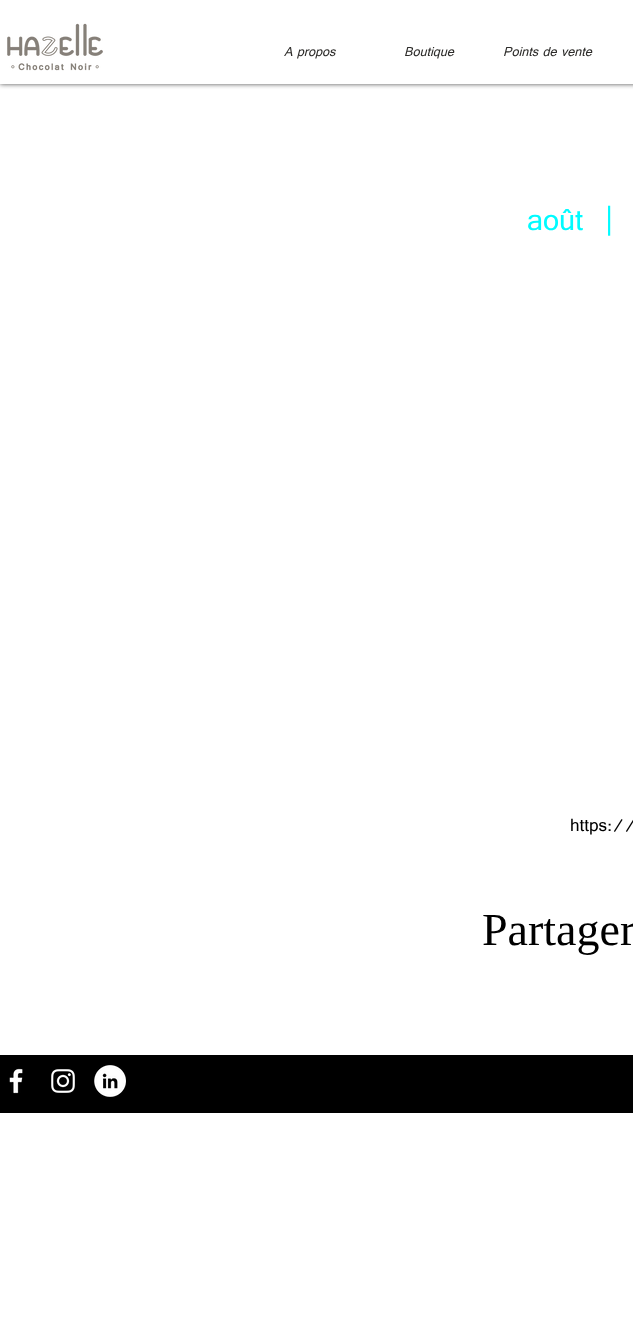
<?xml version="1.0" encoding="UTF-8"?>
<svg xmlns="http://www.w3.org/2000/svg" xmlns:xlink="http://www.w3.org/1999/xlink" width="633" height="1323">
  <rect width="100%" height="100%" fill="#ffffff" />
  <rect width="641" height="84" fill="#000000" fill-opacity="0.7" filter="blur(2.5px)" />
  <rect width="633" height="84" fill="#ffffff" />
  <image x="7" y="23" width="96" height="48" xlink:href="image1.png" />
  <rect y="1055" width="633" height="58" fill="#000000" />
  <image x="9" y="1068" width="14" height="26" xlink:href="image2.png" />
  <image x="51" y="1069" width="24" height="24" xlink:href="image3.png" />
  <image x="94" y="1065" width="32" height="32" xlink:href="image4.png" />
  <text x="284" y="56" style="font-family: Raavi; font-size: 14px; font-style: italic; fill: #2d2c2a">A propos</text>
  <text x="404" y="56" style="font-family: Raavi; font-size: 14px; font-style: italic; fill: #2d2c2a">Boutique</text>
  <text x="503" y="56" style="font-family: Raavi; font-size: 14px; font-style: italic; fill: #2d2c2a">Points de vente</text>
  <text x="527" y="230" style="font-family: Raavi; font-size: 32px; fill: #00fbff">août</text>
  <text x="603" y="230" style="font-family: Raavi; font-size: 32px; fill: #00fbff">|</text>
  <text x="570" y="831" style="font-family: Raavi; font-size: 19px; fill: #000000">https://</text>
  <text x="482" y="945" style="font-family: Liberation Serif; font-size: 46px; fill: #000000">Partager</text>
</svg>
